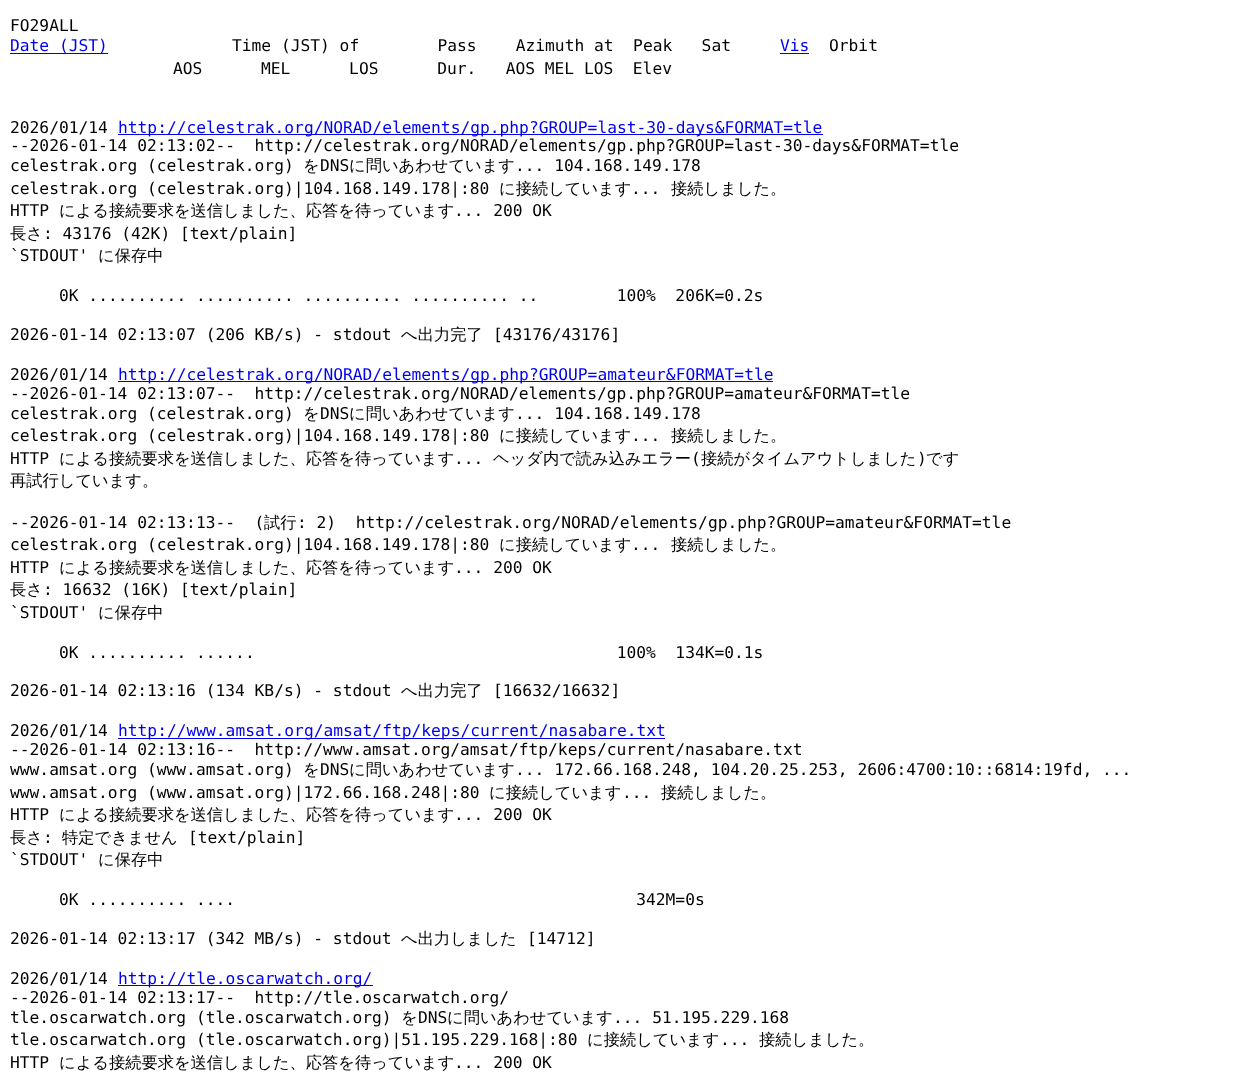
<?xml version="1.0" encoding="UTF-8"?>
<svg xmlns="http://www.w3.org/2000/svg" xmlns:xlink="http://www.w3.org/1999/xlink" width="1234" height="1084">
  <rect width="100%" height="100%" fill="#ffffff" />
  <rect x="10" y="53" width="98" height="1" fill="#0000ee" />
  <rect x="780" y="53" width="29" height="1" fill="#0000ee" />
  <rect x="118" y="134" width="705" height="1" fill="#0000ee" />
  <rect x="118" y="381" width="655" height="1" fill="#0000ee" />
  <rect x="118" y="738" width="547" height="1" fill="#0000ee" />
  <rect x="118" y="985" width="255" height="1" fill="#0000ee" />
  <text x="10" y="31" style="font-family: DejaVu Sans Mono; font-size: 16.25px; fill: #000000">FO29ALL</text>
  <text x="10" y="51" style="font-family: DejaVu Sans Mono; font-size: 16.25px; fill: #0000ee">Date (JST)</text>
  <text x="232" y="51" style="font-family: DejaVu Sans Mono; font-size: 16.25px; fill: #000000" xml:space="preserve">Time (JST) of        Pass    Azimuth at  Peak   Sat</text>
  <text x="780" y="51" style="font-family: DejaVu Sans Mono; font-size: 16.25px; fill: #0000ee">Vis</text>
  <text x="829" y="51" style="font-family: DejaVu Sans Mono; font-size: 16.25px; fill: #000000">Orbit</text>
  <text x="173" y="74" style="font-family: DejaVu Sans Mono; font-size: 16.25px; fill: #000000" xml:space="preserve">AOS      MEL      LOS      Dur.   AOS MEL LOS  Elev</text>
  <text x="10" y="133" style="font-family: DejaVu Sans Mono; font-size: 16.25px; fill: #000000">2026/01/14</text>
  <text x="118" y="133" style="font-family: DejaVu Sans Mono; font-size: 16.25px; fill: #0000ee">http://celestrak.org/NORAD/elements/gp.php?GROUP=last-30-days&amp;FORMAT=tle</text>
  <text x="10" y="151" style="font-family: DejaVu Sans Mono; font-size: 16.25px; fill: #000000" xml:space="preserve">--2026-01-14 02:13:02--  http://celestrak.org/NORAD/elements/gp.php?GROUP=last-30-days&amp;FORMAT=tle</text>
  <text x="10" y="171" style="font-family: DejaVu Sans Mono; font-size: 16.25px; fill: #000000">celestrak.org (celestrak.org)</text>
  <text x="303" y="171" style="font-family: WenQuanYi Zen Hei; font-size: 16.25px; font-weight: 500; fill: #000000">を</text>
  <text x="320" y="171" style="font-family: DejaVu Sans Mono; font-size: 16.25px; fill: #000000">DNS</text>
  <text x="349" y="171" style="font-family: WenQuanYi Zen Hei; font-size: 16.25px; font-weight: 500; fill: #000000">に問いあわせています</text>
  <text x="515" y="171" style="font-family: DejaVu Sans Mono; font-size: 16.25px; fill: #000000">... 104.168.149.178</text>
  <text x="10" y="194" style="font-family: DejaVu Sans Mono; font-size: 16.25px; fill: #000000">celestrak.org (celestrak.org)|104.168.149.178|:80</text>
  <text x="499" y="194" style="font-family: WenQuanYi Zen Hei; font-size: 16.25px; font-weight: 500; fill: #000000">に接続しています</text>
  <text x="631" y="194" style="font-family: DejaVu Sans Mono; font-size: 16.25px; fill: #000000">...</text>
  <text x="671" y="194" style="font-family: WenQuanYi Zen Hei; font-size: 16.25px; font-weight: 500; fill: #000000">接続しました。</text>
  <text x="10" y="216" style="font-family: DejaVu Sans Mono; font-size: 16.25px; fill: #000000">HTTP</text>
  <text x="59" y="216" style="font-family: WenQuanYi Zen Hei; font-size: 16.25px; font-weight: 500; fill: #000000">による接続要求を送信しました、応答を待っています</text>
  <text x="454" y="216" style="font-family: DejaVu Sans Mono; font-size: 16.25px; fill: #000000">... 200 OK</text>
  <text x="10" y="239" style="font-family: WenQuanYi Zen Hei; font-size: 16.25px; font-weight: 500; fill: #000000">長さ</text>
  <text x="43" y="239" style="font-family: DejaVu Sans Mono; font-size: 16.25px; fill: #000000">: 43176 (42K) [text/plain]</text>
  <text x="10" y="261" style="font-family: DejaVu Sans Mono; font-size: 16.25px; fill: #000000">`STDOUT'</text>
  <text x="98" y="261" style="font-family: WenQuanYi Zen Hei; font-size: 16.25px; font-weight: 500; fill: #000000">に保存中</text>
  <text x="59" y="301" style="font-family: DejaVu Sans Mono; font-size: 16.25px; fill: #000000" xml:space="preserve">0K .......... .......... .......... .......... ..        100%  206K=0.2s</text>
  <text x="10" y="340" style="font-family: DejaVu Sans Mono; font-size: 16.25px; fill: #000000">2026-01-14 02:13:07 (206 KB/s) - stdout</text>
  <text x="401" y="340" style="font-family: WenQuanYi Zen Hei; font-size: 16.25px; font-weight: 500; fill: #000000">へ出力完了</text>
  <text x="493" y="340" style="font-family: DejaVu Sans Mono; font-size: 16.25px; fill: #000000">[43176/43176]</text>
  <text x="10" y="380" style="font-family: DejaVu Sans Mono; font-size: 16.25px; fill: #000000">2026/01/14</text>
  <text x="118" y="380" style="font-family: DejaVu Sans Mono; font-size: 16.25px; fill: #0000ee">http://celestrak.org/NORAD/elements/gp.php?GROUP=amateur&amp;FORMAT=tle</text>
  <text x="10" y="399" style="font-family: DejaVu Sans Mono; font-size: 16.25px; fill: #000000" xml:space="preserve">--2026-01-14 02:13:07--  http://celestrak.org/NORAD/elements/gp.php?GROUP=amateur&amp;FORMAT=tle</text>
  <text x="10" y="419" style="font-family: DejaVu Sans Mono; font-size: 16.25px; fill: #000000">celestrak.org (celestrak.org)</text>
  <text x="303" y="419" style="font-family: WenQuanYi Zen Hei; font-size: 16.25px; font-weight: 500; fill: #000000">を</text>
  <text x="320" y="419" style="font-family: DejaVu Sans Mono; font-size: 16.25px; fill: #000000">DNS</text>
  <text x="349" y="419" style="font-family: WenQuanYi Zen Hei; font-size: 16.25px; font-weight: 500; fill: #000000">に問いあわせています</text>
  <text x="515" y="419" style="font-family: DejaVu Sans Mono; font-size: 16.25px; fill: #000000">... 104.168.149.178</text>
  <text x="10" y="441" style="font-family: DejaVu Sans Mono; font-size: 16.25px; fill: #000000">celestrak.org (celestrak.org)|104.168.149.178|:80</text>
  <text x="499" y="441" style="font-family: WenQuanYi Zen Hei; font-size: 16.25px; font-weight: 500; fill: #000000">に接続しています</text>
  <text x="631" y="441" style="font-family: DejaVu Sans Mono; font-size: 16.25px; fill: #000000">...</text>
  <text x="671" y="441" style="font-family: WenQuanYi Zen Hei; font-size: 16.25px; font-weight: 500; fill: #000000">接続しました。</text>
  <text x="10" y="464" style="font-family: DejaVu Sans Mono; font-size: 16.25px; fill: #000000">HTTP</text>
  <text x="59" y="464" style="font-family: WenQuanYi Zen Hei; font-size: 16.25px; font-weight: 500; fill: #000000">による接続要求を送信しました、応答を待っています</text>
  <text x="454" y="464" style="font-family: DejaVu Sans Mono; font-size: 16.25px; fill: #000000">...</text>
  <text x="493" y="464" style="font-family: WenQuanYi Zen Hei; font-size: 16.25px; font-weight: 500; fill: #000000">ヘッダ内で読み込みエラー</text>
  <text x="691" y="464" style="font-family: DejaVu Sans Mono; font-size: 16.25px; fill: #000000">(</text>
  <text x="701" y="464" style="font-family: WenQuanYi Zen Hei; font-size: 16.25px; font-weight: 500; fill: #000000">接続がタイムアウトしました</text>
  <text x="917" y="464" style="font-family: DejaVu Sans Mono; font-size: 16.25px; fill: #000000">)</text>
  <text x="926" y="464" style="font-family: WenQuanYi Zen Hei; font-size: 16.25px; font-weight: 500; fill: #000000">です</text>
  <text x="10" y="486" style="font-family: WenQuanYi Zen Hei; font-size: 16.25px; font-weight: 500; fill: #000000">再試行しています。</text>
  <text x="10" y="528" style="font-family: DejaVu Sans Mono; font-size: 16.25px; fill: #000000" xml:space="preserve">--2026-01-14 02:13:13--  (</text>
  <text x="264" y="528" style="font-family: WenQuanYi Zen Hei; font-size: 16.25px; font-weight: 500; fill: #000000">試行</text>
  <text x="297" y="528" style="font-family: DejaVu Sans Mono; font-size: 16.25px; fill: #000000" xml:space="preserve">: 2)  http://celestrak.org/NORAD/elements/gp.php?GROUP=amateur&amp;FORMAT=tle</text>
  <text x="10" y="550" style="font-family: DejaVu Sans Mono; font-size: 16.25px; fill: #000000">celestrak.org (celestrak.org)|104.168.149.178|:80</text>
  <text x="499" y="550" style="font-family: WenQuanYi Zen Hei; font-size: 16.25px; font-weight: 500; fill: #000000">に接続しています</text>
  <text x="631" y="550" style="font-family: DejaVu Sans Mono; font-size: 16.25px; fill: #000000">...</text>
  <text x="671" y="550" style="font-family: WenQuanYi Zen Hei; font-size: 16.25px; font-weight: 500; fill: #000000">接続しました。</text>
  <text x="10" y="573" style="font-family: DejaVu Sans Mono; font-size: 16.25px; fill: #000000">HTTP</text>
  <text x="59" y="573" style="font-family: WenQuanYi Zen Hei; font-size: 16.25px; font-weight: 500; fill: #000000">による接続要求を送信しました、応答を待っています</text>
  <text x="454" y="573" style="font-family: DejaVu Sans Mono; font-size: 16.25px; fill: #000000">... 200 OK</text>
  <text x="10" y="595" style="font-family: WenQuanYi Zen Hei; font-size: 16.25px; font-weight: 500; fill: #000000">長さ</text>
  <text x="43" y="595" style="font-family: DejaVu Sans Mono; font-size: 16.25px; fill: #000000">: 16632 (16K) [text/plain]</text>
  <text x="10" y="618" style="font-family: DejaVu Sans Mono; font-size: 16.25px; fill: #000000">`STDOUT'</text>
  <text x="98" y="618" style="font-family: WenQuanYi Zen Hei; font-size: 16.25px; font-weight: 500; fill: #000000">に保存中</text>
  <text x="59" y="658" style="font-family: DejaVu Sans Mono; font-size: 16.25px; fill: #000000" xml:space="preserve">0K .......... ......                                     100%  134K=0.1s</text>
  <text x="10" y="696" style="font-family: DejaVu Sans Mono; font-size: 16.25px; fill: #000000">2026-01-14 02:13:16 (134 KB/s) - stdout</text>
  <text x="401" y="696" style="font-family: WenQuanYi Zen Hei; font-size: 16.25px; font-weight: 500; fill: #000000">へ出力完了</text>
  <text x="493" y="696" style="font-family: DejaVu Sans Mono; font-size: 16.25px; fill: #000000">[16632/16632]</text>
  <text x="10" y="736" style="font-family: DejaVu Sans Mono; font-size: 16.25px; fill: #000000">2026/01/14</text>
  <text x="118" y="736" style="font-family: DejaVu Sans Mono; font-size: 16.25px; fill: #0000ee">http://www.amsat.org/amsat/ftp/keps/current/nasabare.txt</text>
  <text x="10" y="755" style="font-family: DejaVu Sans Mono; font-size: 16.25px; fill: #000000" xml:space="preserve">--2026-01-14 02:13:16--  http://www.amsat.org/amsat/ftp/keps/current/nasabare.txt</text>
  <text x="10" y="775" style="font-family: DejaVu Sans Mono; font-size: 16.25px; fill: #000000">www.amsat.org (www.amsat.org)</text>
  <text x="303" y="775" style="font-family: WenQuanYi Zen Hei; font-size: 16.25px; font-weight: 500; fill: #000000">を</text>
  <text x="320" y="775" style="font-family: DejaVu Sans Mono; font-size: 16.25px; fill: #000000">DNS</text>
  <text x="349" y="775" style="font-family: WenQuanYi Zen Hei; font-size: 16.25px; font-weight: 500; fill: #000000">に問いあわせています</text>
  <text x="515" y="775" style="font-family: DejaVu Sans Mono; font-size: 16.25px; fill: #000000">... 172.66.168.248, 104.20.25.253, 2606:4700:10::6814:19fd, ...</text>
  <text x="10" y="798" style="font-family: DejaVu Sans Mono; font-size: 16.25px; fill: #000000">www.amsat.org (www.amsat.org)|172.66.168.248|:80</text>
  <text x="489" y="798" style="font-family: WenQuanYi Zen Hei; font-size: 16.25px; font-weight: 500; fill: #000000">に接続しています</text>
  <text x="622" y="798" style="font-family: DejaVu Sans Mono; font-size: 16.25px; fill: #000000">...</text>
  <text x="661" y="798" style="font-family: WenQuanYi Zen Hei; font-size: 16.25px; font-weight: 500; fill: #000000">接続しました。</text>
  <text x="10" y="820" style="font-family: DejaVu Sans Mono; font-size: 16.25px; fill: #000000">HTTP</text>
  <text x="59" y="820" style="font-family: WenQuanYi Zen Hei; font-size: 16.25px; font-weight: 500; fill: #000000">による接続要求を送信しました、応答を待っています</text>
  <text x="454" y="820" style="font-family: DejaVu Sans Mono; font-size: 16.25px; fill: #000000">... 200 OK</text>
  <text x="10" y="843" style="font-family: WenQuanYi Zen Hei; font-size: 16.25px; font-weight: 500; fill: #000000">長さ</text>
  <text x="43" y="843" style="font-family: DejaVu Sans Mono; font-size: 16.25px; fill: #000000">:</text>
  <text x="62" y="843" style="font-family: WenQuanYi Zen Hei; font-size: 16.25px; font-weight: 500; fill: #000000">特定できません</text>
  <text x="188" y="843" style="font-family: DejaVu Sans Mono; font-size: 16.25px; fill: #000000">[text/plain]</text>
  <text x="10" y="865" style="font-family: DejaVu Sans Mono; font-size: 16.25px; fill: #000000">`STDOUT'</text>
  <text x="98" y="865" style="font-family: WenQuanYi Zen Hei; font-size: 16.25px; font-weight: 500; fill: #000000">に保存中</text>
  <text x="59" y="905" style="font-family: DejaVu Sans Mono; font-size: 16.25px; fill: #000000" xml:space="preserve">0K .......... ....                                         342M=0s</text>
  <text x="10" y="944" style="font-family: DejaVu Sans Mono; font-size: 16.25px; fill: #000000">2026-01-14 02:13:17 (342 MB/s) - stdout</text>
  <text x="401" y="944" style="font-family: WenQuanYi Zen Hei; font-size: 16.25px; font-weight: 500; fill: #000000">へ出力しました</text>
  <text x="527" y="944" style="font-family: DejaVu Sans Mono; font-size: 16.25px; fill: #000000">[14712]</text>
  <text x="10" y="984" style="font-family: DejaVu Sans Mono; font-size: 16.25px; fill: #000000">2026/01/14</text>
  <text x="118" y="984" style="font-family: DejaVu Sans Mono; font-size: 16.25px; fill: #0000ee">http://tle.oscarwatch.org/</text>
  <text x="10" y="1003" style="font-family: DejaVu Sans Mono; font-size: 16.25px; fill: #000000" xml:space="preserve">--2026-01-14 02:13:17--  http://tle.oscarwatch.org/</text>
  <text x="10" y="1023" style="font-family: DejaVu Sans Mono; font-size: 16.25px; fill: #000000">tle.oscarwatch.org (tle.oscarwatch.org)</text>
  <text x="401" y="1023" style="font-family: WenQuanYi Zen Hei; font-size: 16.25px; font-weight: 500; fill: #000000">を</text>
  <text x="418" y="1023" style="font-family: DejaVu Sans Mono; font-size: 16.25px; fill: #000000">DNS</text>
  <text x="447" y="1023" style="font-family: WenQuanYi Zen Hei; font-size: 16.25px; font-weight: 500; fill: #000000">に問いあわせています</text>
  <text x="613" y="1023" style="font-family: DejaVu Sans Mono; font-size: 16.25px; fill: #000000">... 51.195.229.168</text>
  <text x="10" y="1045" style="font-family: DejaVu Sans Mono; font-size: 16.25px; fill: #000000">tle.oscarwatch.org (tle.oscarwatch.org)|51.195.229.168|:80</text>
  <text x="587" y="1045" style="font-family: WenQuanYi Zen Hei; font-size: 16.25px; font-weight: 500; fill: #000000">に接続しています</text>
  <text x="720" y="1045" style="font-family: DejaVu Sans Mono; font-size: 16.25px; fill: #000000">...</text>
  <text x="759" y="1045" style="font-family: WenQuanYi Zen Hei; font-size: 16.25px; font-weight: 500; fill: #000000">接続しました。</text>
  <text x="10" y="1068" style="font-family: DejaVu Sans Mono; font-size: 16.25px; fill: #000000">HTTP</text>
  <text x="59" y="1068" style="font-family: WenQuanYi Zen Hei; font-size: 16.25px; font-weight: 500; fill: #000000">による接続要求を送信しました、応答を待っています</text>
  <text x="454" y="1068" style="font-family: DejaVu Sans Mono; font-size: 16.25px; fill: #000000">... 200 OK</text>
</svg>
